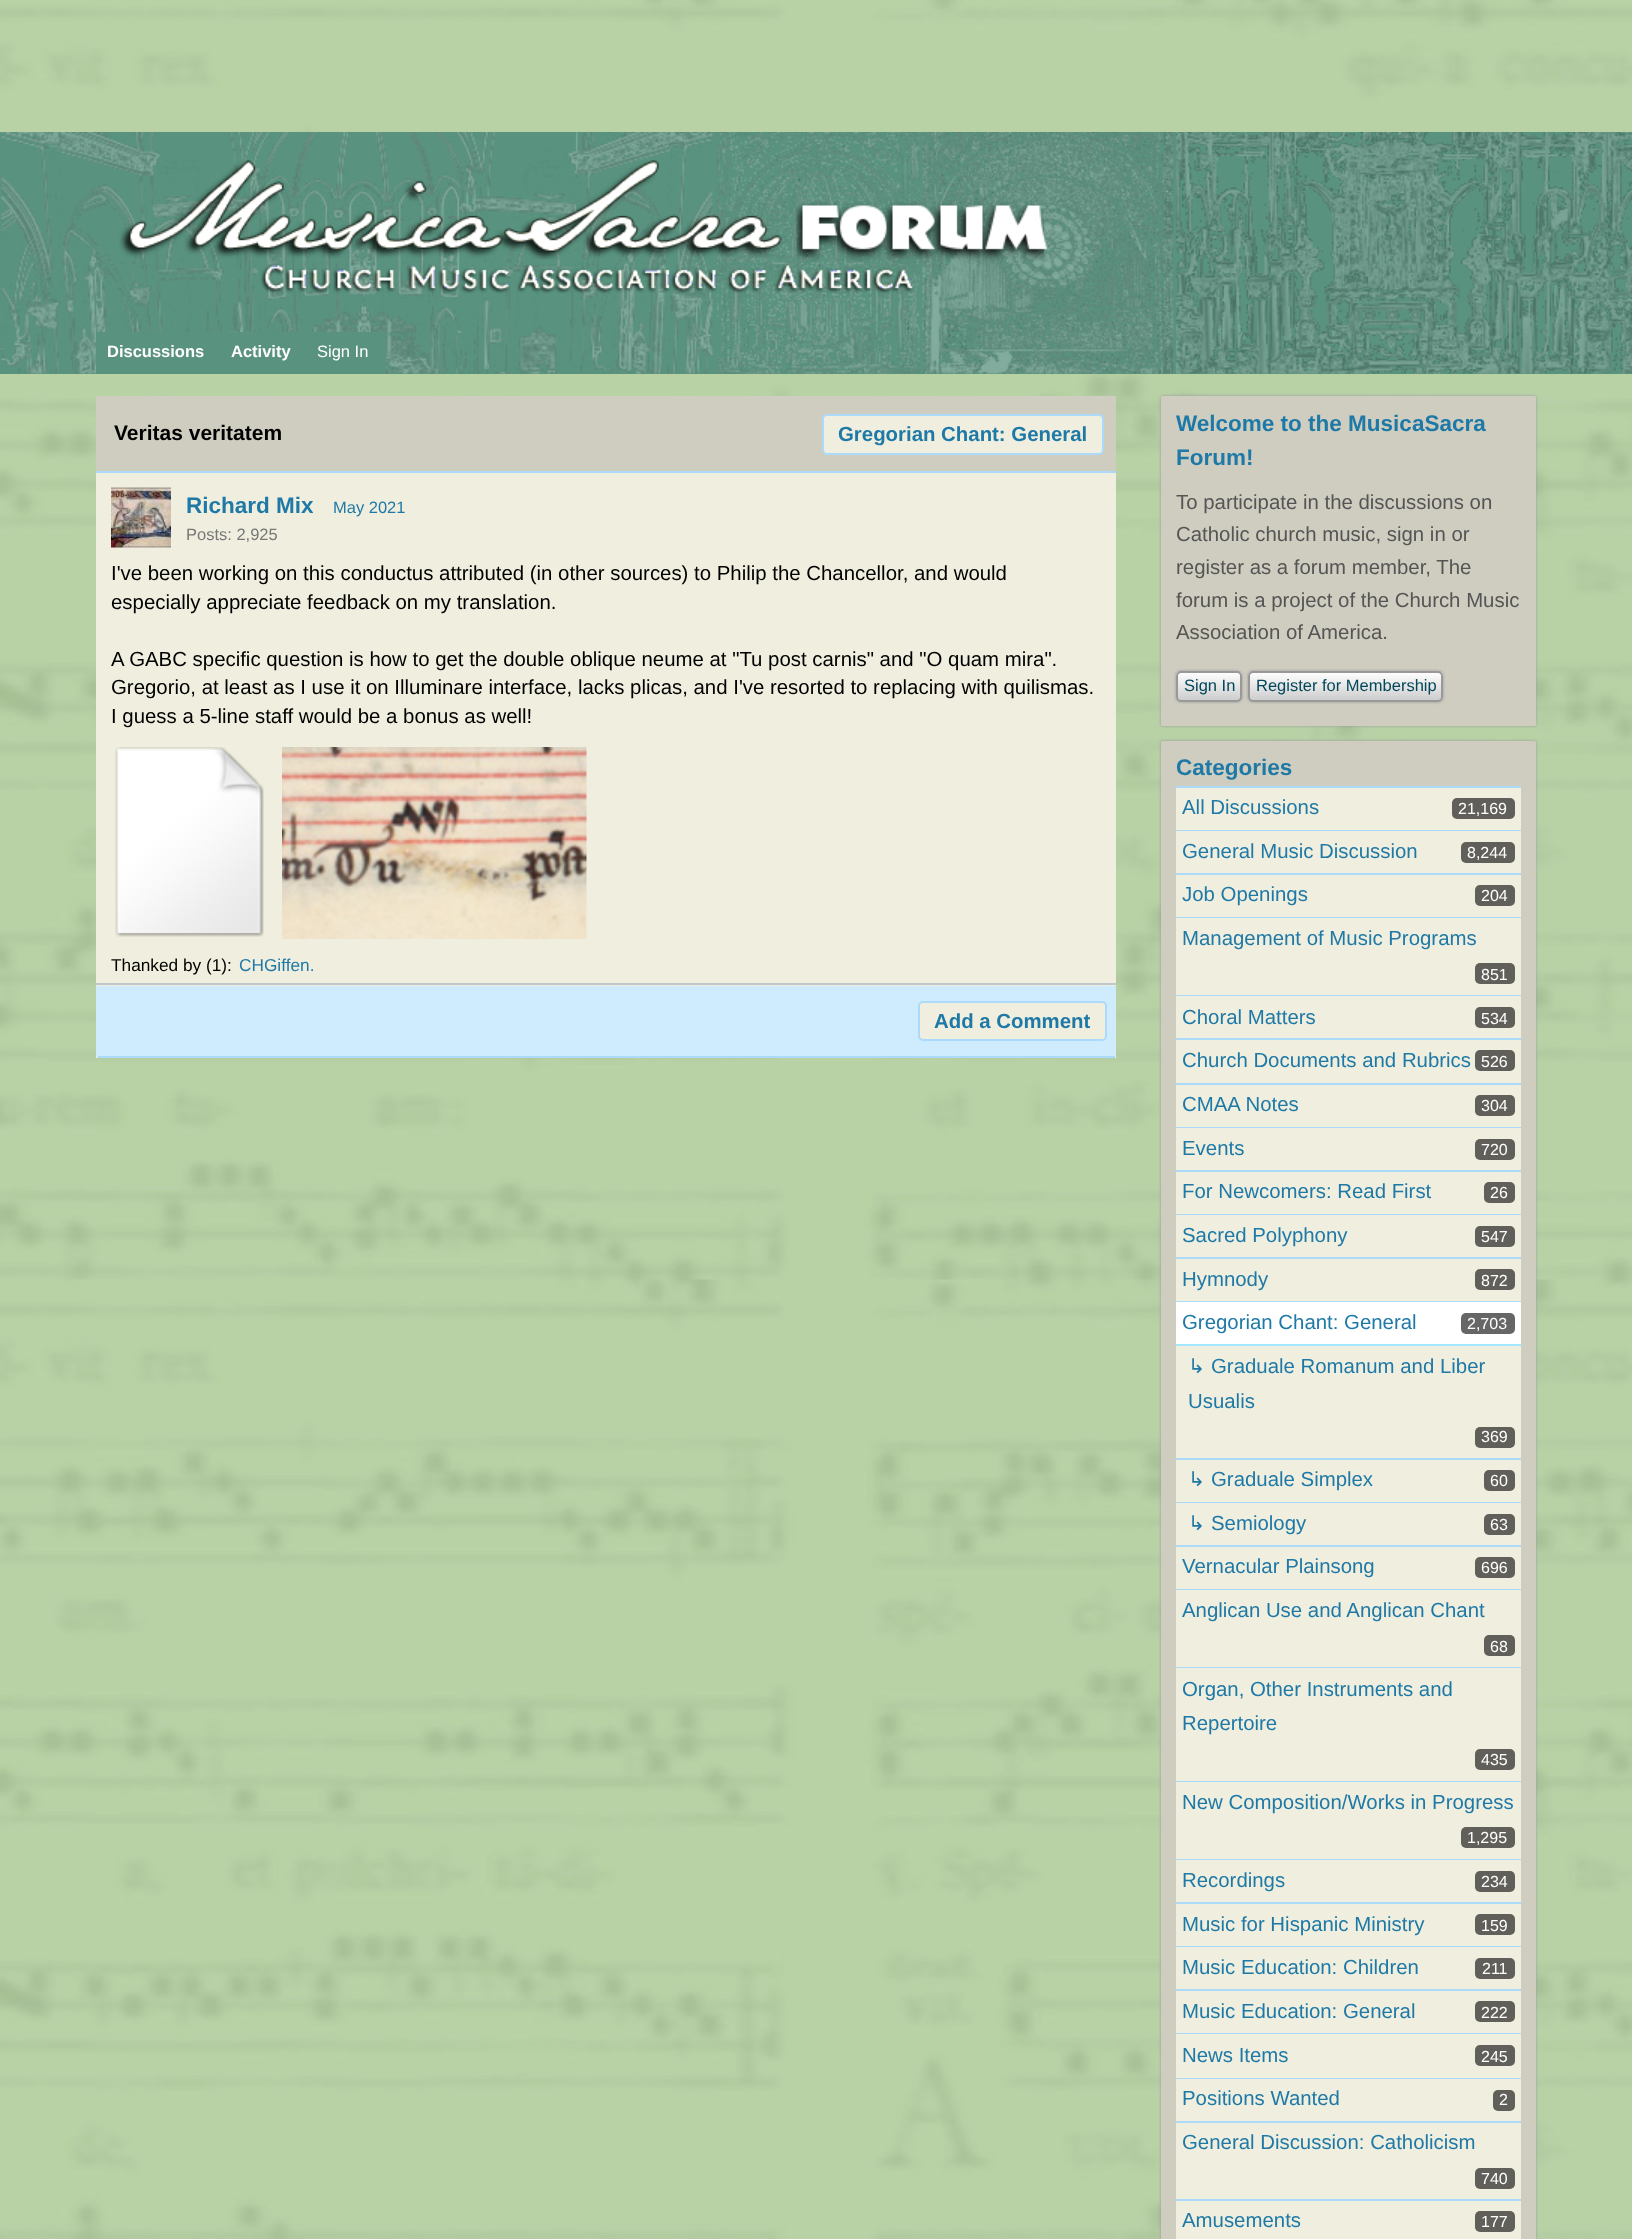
<?xml version="1.0" encoding="UTF-8"?>
<svg xmlns="http://www.w3.org/2000/svg" xmlns:xlink="http://www.w3.org/1999/xlink" width="1632" height="2239">
  <defs>
    <clipPath id="clip1"><rect x="1176" y="671" width="66" height="31" rx="5" /></clipPath>
    <linearGradient id="g1" gradientUnits="userSpaceOnUse" x1="1209" y1="701" x2="1209" y2="672"><stop offset="0" stop-color="#cccccc" /><stop offset="1" stop-color="#ffffff" /></linearGradient>
    <clipPath id="clip2"><rect x="1248" y="671" width="195" height="31" rx="5" /></clipPath>
    <linearGradient id="g2" gradientUnits="userSpaceOnUse" x1="1346" y1="701" x2="1346" y2="672"><stop offset="0" stop-color="#cccccc" /><stop offset="1" stop-color="#ffffff" /></linearGradient>
  </defs>
  <rect width="100%" height="100%" fill="#ffffff" />
  <image x="0" y="0" width="1632" height="2239" xlink:href="image1.png" />
  <rect y="132" width="1632" height="242" fill="#59927f" />
  <image x="1" y="132" width="1631" height="242" xlink:href="image2.png" />
  <image x="119" y="160" width="929" height="134" xlink:href="image3.png" />
  <rect x="96" y="332" width="290" height="42" fill="#59927f" />
  <rect x="96" y="473" width="1020" height="585" fill="#f0eede" />
  <rect x="96" y="396" width="1020" height="75" fill="#cfcdc0" />
  <rect x="96" y="471" width="1020" height="2" fill="#abdafb" />
  <rect x="823" y="415" width="280" height="39" rx="4" fill="#f0eede" stroke="#abdafb" stroke-width="2" />
  <rect x="96" y="983" width="1020" height="2" fill="#bec8cc" />
  <rect x="111" y="547" width="60" height="1" fill="#eeeeee" />
  <image x="111" y="487" width="60" height="61" xlink:href="image4.png" />
  <image x="115" y="747" width="149" height="190" xlink:href="image5.png" />
  <image x="282" y="747" width="305" height="192" xlink:href="image6.png" />
  <path d="M 96 986 h 1020 v 69 c 0 1.5 -1.5 3 -3 3 h -1014 c -1.5 0 -3 -1.5 -3 -3 z" fill="#cfecff" />
  <rect x="98" y="1056" width="1017" height="2" fill="#abdafb" />
  <rect x="919" y="1002" width="187" height="38" rx="4" fill="#f0eede" stroke="#abdafb" stroke-width="2" />
  <rect x="1161" y="396" width="375" height="330" rx="1.5" fill="#999999" filter="blur(1.5px)" />
  <rect x="1161" y="396" width="375" height="330" rx="1.5" fill="#cfcdc0" />
  <rect x="1176" y="671" width="66" height="31" rx="5" fill="#999999" filter="blur(1.5px)" />
  <g clip-path="url(#clip1)">
    <rect x="1176" y="672" width="66" height="29" fill="url(#g1)" />
  </g>
  <rect x="1177" y="672" width="64" height="29" rx="4" fill="none" stroke="#999999" stroke-width="2" />
  <rect x="1248" y="671" width="195" height="31" rx="5" fill="#999999" filter="blur(1.5px)" />
  <g clip-path="url(#clip2)">
    <rect x="1248" y="672" width="195" height="29" fill="url(#g2)" />
  </g>
  <rect x="1249" y="672" width="193" height="29" rx="4" fill="none" stroke="#999999" stroke-width="2" />
  <rect x="1161" y="741" width="375" height="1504" rx="1.5" fill="#999999" filter="blur(1.5px)" />
  <rect x="1161" y="741" width="375" height="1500" rx="1.5" fill="#cfcdc0" />
  <rect x="1176" y="786" width="345" height="2" fill="#abdafb" />
  <rect x="1176" y="788" width="345" height="42" fill="#f0eede" />
  <rect x="1176" y="830" width="345" height="1" fill="#abdafb" />
  <rect x="1452" y="798" width="63" height="21" rx="5" fill="#605f59" />
  <rect x="1176" y="831" width="345" height="42" fill="#f0eede" />
  <rect x="1176" y="873" width="345" height="2" fill="#abdafb" />
  <rect x="1461" y="842" width="54" height="21" rx="5" fill="#605f59" />
  <rect x="1176" y="875" width="345" height="42" fill="#f0eede" />
  <rect x="1176" y="917" width="345" height="1" fill="#abdafb" />
  <rect x="1475" y="885" width="40" height="21" rx="5" fill="#605f59" />
  <rect x="1176" y="918" width="345" height="77" fill="#f0eede" />
  <rect x="1176" y="995" width="345" height="1" fill="#abdafb" />
  <rect x="1475" y="963" width="40" height="21" rx="5" fill="#605f59" />
  <rect x="1176" y="996" width="345" height="42" fill="#f0eede" />
  <rect x="1176" y="1038" width="345" height="2" fill="#abdafb" />
  <rect x="1475" y="1007" width="40" height="21" rx="5" fill="#605f59" />
  <rect x="1176" y="1040" width="345" height="43" fill="#f0eede" />
  <rect x="1176" y="1083" width="345" height="2" fill="#abdafb" />
  <rect x="1475" y="1050" width="40" height="21" rx="5" fill="#605f59" />
  <rect x="1176" y="1085" width="345" height="42" fill="#f0eede" />
  <rect x="1176" y="1127" width="345" height="1" fill="#abdafb" />
  <rect x="1475" y="1095" width="40" height="21" rx="5" fill="#605f59" />
  <rect x="1176" y="1128" width="345" height="42" fill="#f0eede" />
  <rect x="1176" y="1170" width="345" height="2" fill="#abdafb" />
  <rect x="1475" y="1139" width="40" height="21" rx="5" fill="#605f59" />
  <rect x="1176" y="1172" width="345" height="42" fill="#f0eede" />
  <rect x="1176" y="1214" width="345" height="1" fill="#abdafb" />
  <rect x="1484" y="1182" width="31" height="21" rx="5" fill="#605f59" />
  <rect x="1176" y="1215" width="345" height="42" fill="#f0eede" />
  <rect x="1176" y="1257" width="345" height="2" fill="#abdafb" />
  <rect x="1475" y="1226" width="40" height="21" rx="5" fill="#605f59" />
  <rect x="1176" y="1259" width="345" height="42" fill="#f0eede" />
  <rect x="1176" y="1301" width="345" height="1" fill="#abdafb" />
  <rect x="1475" y="1269" width="40" height="21" rx="5" fill="#605f59" />
  <rect x="1176" y="1302" width="345" height="42" fill="#ffffff" />
  <rect x="1176" y="1344" width="345" height="2" fill="#a3e6ff" />
  <rect x="1461" y="1313" width="54" height="21" rx="5" fill="#666666" />
  <rect x="1176" y="1346" width="345" height="112" fill="#f0eede" />
  <rect x="1176" y="1458" width="345" height="2" fill="#abdafb" />
  <rect x="1475" y="1427" width="40" height="21" rx="5" fill="#605f59" />
  <rect x="1176" y="1460" width="345" height="42" fill="#f0eede" />
  <rect x="1176" y="1502" width="345" height="1" fill="#abdafb" />
  <rect x="1484" y="1470" width="31" height="21" rx="5" fill="#605f59" />
  <rect x="1176" y="1503" width="345" height="42" fill="#f0eede" />
  <rect x="1176" y="1545" width="345" height="2" fill="#abdafb" />
  <rect x="1484" y="1514" width="31" height="21" rx="5" fill="#605f59" />
  <rect x="1176" y="1547" width="345" height="42" fill="#f0eede" />
  <rect x="1176" y="1589" width="345" height="1" fill="#abdafb" />
  <rect x="1475" y="1557" width="40" height="21" rx="5" fill="#605f59" />
  <rect x="1176" y="1590" width="345" height="77" fill="#f0eede" />
  <rect x="1176" y="1667" width="345" height="1" fill="#abdafb" />
  <rect x="1484" y="1635" width="31" height="21" rx="5" fill="#605f59" />
  <rect x="1176" y="1668" width="345" height="113" fill="#f0eede" />
  <rect x="1176" y="1781" width="345" height="1" fill="#abdafb" />
  <rect x="1475" y="1749" width="40" height="21" rx="5" fill="#605f59" />
  <rect x="1176" y="1782" width="345" height="77" fill="#f0eede" />
  <rect x="1176" y="1859" width="345" height="1" fill="#abdafb" />
  <rect x="1461" y="1827" width="54" height="21" rx="5" fill="#605f59" />
  <rect x="1176" y="1860" width="345" height="42" fill="#f0eede" />
  <rect x="1176" y="1902" width="345" height="2" fill="#abdafb" />
  <rect x="1475" y="1871" width="40" height="21" rx="5" fill="#605f59" />
  <rect x="1176" y="1904" width="345" height="42" fill="#f0eede" />
  <rect x="1176" y="1946" width="345" height="1" fill="#abdafb" />
  <rect x="1475" y="1914" width="40" height="21" rx="5" fill="#605f59" />
  <rect x="1176" y="1947" width="345" height="42" fill="#f0eede" />
  <rect x="1176" y="1989" width="345" height="2" fill="#abdafb" />
  <rect x="1475" y="1958" width="40" height="21" rx="5" fill="#605f59" />
  <rect x="1176" y="1991" width="345" height="42" fill="#f0eede" />
  <rect x="1176" y="2033" width="345" height="1" fill="#abdafb" />
  <rect x="1475" y="2001" width="40" height="21" rx="5" fill="#605f59" />
  <rect x="1176" y="2034" width="345" height="44" fill="#f0eede" />
  <rect x="1176" y="2078" width="345" height="1" fill="#abdafb" />
  <rect x="1475" y="2045" width="40" height="21" rx="5" fill="#605f59" />
  <rect x="1176" y="2079" width="345" height="42" fill="#f0eede" />
  <rect x="1176" y="2121" width="345" height="2" fill="#abdafb" />
  <rect x="1493" y="2090" width="22" height="21" rx="5" fill="#605f59" />
  <rect x="1176" y="2123" width="345" height="76" fill="#f0eede" />
  <rect x="1176" y="2199" width="345" height="2" fill="#abdafb" />
  <rect x="1475" y="2168" width="40" height="21" rx="5" fill="#605f59" />
  <rect x="1176" y="2201" width="345" height="38" fill="#f0eede" />
  <rect x="1475" y="2211" width="40" height="21" rx="5" fill="#605f59" />
  <text x="107" y="357" style="font-family: Liberation Sans; font-size: 16.5px; font-weight: bold; fill: #ffffff">Discussions</text>
  <text x="231" y="357" style="font-family: Liberation Sans; font-size: 16.5px; font-weight: bold; fill: #ffffff">Activity</text>
  <text x="317" y="357" style="font-family: Liberation Sans; font-size: 16.5px; fill: #ffffff">Sign In</text>
  <text x="114" y="440" style="font-family: Liberation Sans; font-size: 21px; font-weight: bold; fill: #000000">Veritas veritatem</text>
  <text x="838" y="441" style="font-family: Liberation Sans; font-size: 20.4px; font-weight: bold; fill: #1e79a7">Gregorian Chant: General</text>
  <text x="186" y="513" style="font-family: Liberation Sans; font-size: 22.5px; font-weight: bold; fill: #1e79a7">Richard Mix</text>
  <text x="333" y="513" style="font-family: Liberation Sans; font-size: 16.5px; fill: #1e79a7">May 2021</text>
  <text x="186" y="540" style="font-family: Liberation Sans; font-size: 16.5px; fill: #777777">Posts: 2,925</text>
  <text x="111" y="580" style="font-family: Liberation Sans; font-size: 20.4px; fill: #000000">I've been working on this conductus attributed (in other sources) to Philip the Chancellor, and would</text>
  <text x="111" y="609" style="font-family: Liberation Sans; font-size: 20.4px; fill: #000000">especially appreciate feedback on my translation.</text>
  <text x="111" y="666" style="font-family: Liberation Sans; font-size: 20.4px; fill: #000000">A GABC specific question is how to get the double oblique neume at "Tu post carnis" and "O quam mira".</text>
  <text x="111" y="694" style="font-family: Liberation Sans; font-size: 20.4px; fill: #000000">Gregorio, at least as I use it on Illuminare interface, lacks plicas, and I've resorted to replacing with quilismas.</text>
  <text x="111" y="723" style="font-family: Liberation Sans; font-size: 20.4px; fill: #000000">I guess a 5-line staff would be a bonus as well!</text>
  <text x="111" y="971" style="font-family: Liberation Sans; font-size: 17.25px; fill: #000000">Thanked by (1):</text>
  <text x="239" y="971" style="font-family: Liberation Sans; font-size: 17.25px; fill: #1e79a7">CHGiffen.</text>
  <text x="934" y="1028" style="font-family: Liberation Sans; font-size: 20.4px; font-weight: bold; fill: #1e79a7">Add a Comment</text>
  <text x="1176" y="431" style="font-family: Liberation Sans; font-size: 22.5px; font-weight: bold; fill: #1e79a7">Welcome to the MusicaSacra</text>
  <text x="1176" y="465" style="font-family: Liberation Sans; font-size: 22.5px; font-weight: bold; fill: #1e79a7">Forum!</text>
  <text x="1176" y="509" style="font-family: Liberation Sans; font-size: 20.4px; fill: #555555">To participate in the discussions on</text>
  <text x="1176" y="541" style="font-family: Liberation Sans; font-size: 20.4px; fill: #555555">Catholic church music, sign in or</text>
  <text x="1176" y="574" style="font-family: Liberation Sans; font-size: 20.4px; fill: #555555">register as a forum member, The</text>
  <text x="1176" y="607" style="font-family: Liberation Sans; font-size: 20.4px; fill: #555555">forum is a project of the Church Music</text>
  <text x="1176" y="639" style="font-family: Liberation Sans; font-size: 20.4px; fill: #555555">Association of America.</text>
  <text x="1184" y="691" style="font-family: Liberation Sans; font-size: 16.5px; fill: #02475a">Sign In</text>
  <text x="1256" y="691" style="font-family: Liberation Sans; font-size: 16.5px; fill: #02475a">Register for Membership</text>
  <text x="1176" y="775" style="font-family: Liberation Sans; font-size: 22.5px; font-weight: bold; fill: #1e79a7">Categories</text>
  <text x="1182" y="814" style="font-family: Liberation Sans; font-size: 20.4px; fill: #1e79a7">All Discussions</text>
  <text x="1458" y="814" style="font-family: Liberation Sans; font-size: 16px; fill: #ffffff">21,169</text>
  <text x="1182" y="858" style="font-family: Liberation Sans; font-size: 20.4px; fill: #1e79a7">General Music Discussion</text>
  <text x="1467" y="858" style="font-family: Liberation Sans; font-size: 16px; fill: #ffffff">8,244</text>
  <text x="1182" y="901" style="font-family: Liberation Sans; font-size: 20.4px; fill: #1e79a7">Job Openings</text>
  <text x="1481" y="901" style="font-family: Liberation Sans; font-size: 16px; fill: #ffffff">204</text>
  <text x="1182" y="945" style="font-family: Liberation Sans; font-size: 20.4px; fill: #1e79a7">Management of Music Programs</text>
  <text x="1481" y="980" style="font-family: Liberation Sans; font-size: 16px; fill: #ffffff">851</text>
  <text x="1182" y="1024" style="font-family: Liberation Sans; font-size: 20.4px; fill: #1e79a7">Choral Matters</text>
  <text x="1481" y="1024" style="font-family: Liberation Sans; font-size: 16px; fill: #ffffff">534</text>
  <text x="1182" y="1067" style="font-family: Liberation Sans; font-size: 20.4px; fill: #1e79a7">Church Documents and Rubrics</text>
  <text x="1481" y="1067" style="font-family: Liberation Sans; font-size: 16px; fill: #ffffff">526</text>
  <text x="1182" y="1111" style="font-family: Liberation Sans; font-size: 20.4px; fill: #1e79a7">CMAA Notes</text>
  <text x="1481" y="1111" style="font-family: Liberation Sans; font-size: 16px; fill: #ffffff">304</text>
  <text x="1182" y="1155" style="font-family: Liberation Sans; font-size: 20.4px; fill: #1e79a7">Events</text>
  <text x="1481" y="1155" style="font-family: Liberation Sans; font-size: 16px; fill: #ffffff">720</text>
  <text x="1182" y="1198" style="font-family: Liberation Sans; font-size: 20.4px; fill: #1e79a7">For Newcomers: Read First</text>
  <text x="1490" y="1198" style="font-family: Liberation Sans; font-size: 16px; fill: #ffffff">26</text>
  <text x="1182" y="1242" style="font-family: Liberation Sans; font-size: 20.4px; fill: #1e79a7">Sacred Polyphony</text>
  <text x="1481" y="1242" style="font-family: Liberation Sans; font-size: 16px; fill: #ffffff">547</text>
  <text x="1182" y="1286" style="font-family: Liberation Sans; font-size: 20.4px; fill: #1e79a7">Hymnody</text>
  <text x="1481" y="1286" style="font-family: Liberation Sans; font-size: 16px; fill: #ffffff">872</text>
  <text x="1182" y="1329" style="font-family: Liberation Sans; font-size: 20.4px; fill: #1e79a7">Gregorian Chant: General</text>
  <text x="1467" y="1329" style="font-family: Liberation Sans; font-size: 16px; fill: #ffffff">2,703</text>
  <text x="1188" y="1373" style="font-family: DejaVu Sans; font-size: 20.4px; fill: #1e79a7">↳</text>
  <text x="1211" y="1373" style="font-family: Liberation Sans; font-size: 20.4px; fill: #1e79a7">Graduale Romanum and Liber</text>
  <text x="1188" y="1408" style="font-family: Liberation Sans; font-size: 20.4px; fill: #1e79a7">Usualis</text>
  <text x="1481" y="1442" style="font-family: Liberation Sans; font-size: 16px; fill: #ffffff">369</text>
  <text x="1188" y="1486" style="font-family: DejaVu Sans; font-size: 20.4px; fill: #1e79a7">↳</text>
  <text x="1211" y="1486" style="font-family: Liberation Sans; font-size: 20.4px; fill: #1e79a7">Graduale Simplex</text>
  <text x="1490" y="1486" style="font-family: Liberation Sans; font-size: 16px; fill: #ffffff">60</text>
  <text x="1188" y="1530" style="font-family: DejaVu Sans; font-size: 20.4px; fill: #1e79a7">↳</text>
  <text x="1211" y="1530" style="font-family: Liberation Sans; font-size: 20.4px; fill: #1e79a7">Semiology</text>
  <text x="1490" y="1530" style="font-family: Liberation Sans; font-size: 16px; fill: #ffffff">63</text>
  <text x="1182" y="1573" style="font-family: Liberation Sans; font-size: 20.4px; fill: #1e79a7">Vernacular Plainsong</text>
  <text x="1481" y="1573" style="font-family: Liberation Sans; font-size: 16px; fill: #ffffff">696</text>
  <text x="1182" y="1617" style="font-family: Liberation Sans; font-size: 20.4px; fill: #1e79a7">Anglican Use and Anglican Chant</text>
  <text x="1490" y="1652" style="font-family: Liberation Sans; font-size: 16px; fill: #ffffff">68</text>
  <text x="1182" y="1696" style="font-family: Liberation Sans; font-size: 20.4px; fill: #1e79a7">Organ, Other Instruments and</text>
  <text x="1182" y="1730" style="font-family: Liberation Sans; font-size: 20.4px; fill: #1e79a7">Repertoire</text>
  <text x="1481" y="1765" style="font-family: Liberation Sans; font-size: 16px; fill: #ffffff">435</text>
  <text x="1182" y="1809" style="font-family: Liberation Sans; font-size: 20.4px; fill: #1e79a7">New Composition/Works in Progress</text>
  <text x="1467" y="1843" style="font-family: Liberation Sans; font-size: 16px; fill: #ffffff">1,295</text>
  <text x="1182" y="1887" style="font-family: Liberation Sans; font-size: 20.4px; fill: #1e79a7">Recordings</text>
  <text x="1481" y="1887" style="font-family: Liberation Sans; font-size: 16px; fill: #ffffff">234</text>
  <text x="1182" y="1931" style="font-family: Liberation Sans; font-size: 20.4px; fill: #1e79a7">Music for Hispanic Ministry</text>
  <text x="1481" y="1931" style="font-family: Liberation Sans; font-size: 16px; fill: #ffffff">159</text>
  <text x="1182" y="1974" style="font-family: Liberation Sans; font-size: 20.4px; fill: #1e79a7">Music Education: Children</text>
  <text x="1482" y="1974" style="font-family: Liberation Sans; font-size: 16px; fill: #ffffff">211</text>
  <text x="1182" y="2018" style="font-family: Liberation Sans; font-size: 20.4px; fill: #1e79a7">Music Education: General</text>
  <text x="1481" y="2018" style="font-family: Liberation Sans; font-size: 16px; fill: #ffffff">222</text>
  <text x="1182" y="2062" style="font-family: Liberation Sans; font-size: 20.4px; fill: #1e79a7">News Items</text>
  <text x="1481" y="2062" style="font-family: Liberation Sans; font-size: 16px; fill: #ffffff">245</text>
  <text x="1182" y="2105" style="font-family: Liberation Sans; font-size: 20.4px; fill: #1e79a7">Positions Wanted</text>
  <text x="1499" y="2105" style="font-family: Liberation Sans; font-size: 16px; fill: #ffffff">2</text>
  <text x="1182" y="2149" style="font-family: Liberation Sans; font-size: 20.4px; fill: #1e79a7">General Discussion: Catholicism</text>
  <text x="1481" y="2184" style="font-family: Liberation Sans; font-size: 16px; fill: #ffffff">740</text>
  <text x="1182" y="2227" style="font-family: Liberation Sans; font-size: 20.4px; fill: #1e79a7">Amusements</text>
  <text x="1481" y="2227" style="font-family: Liberation Sans; font-size: 16px; fill: #ffffff">177</text>
</svg>
